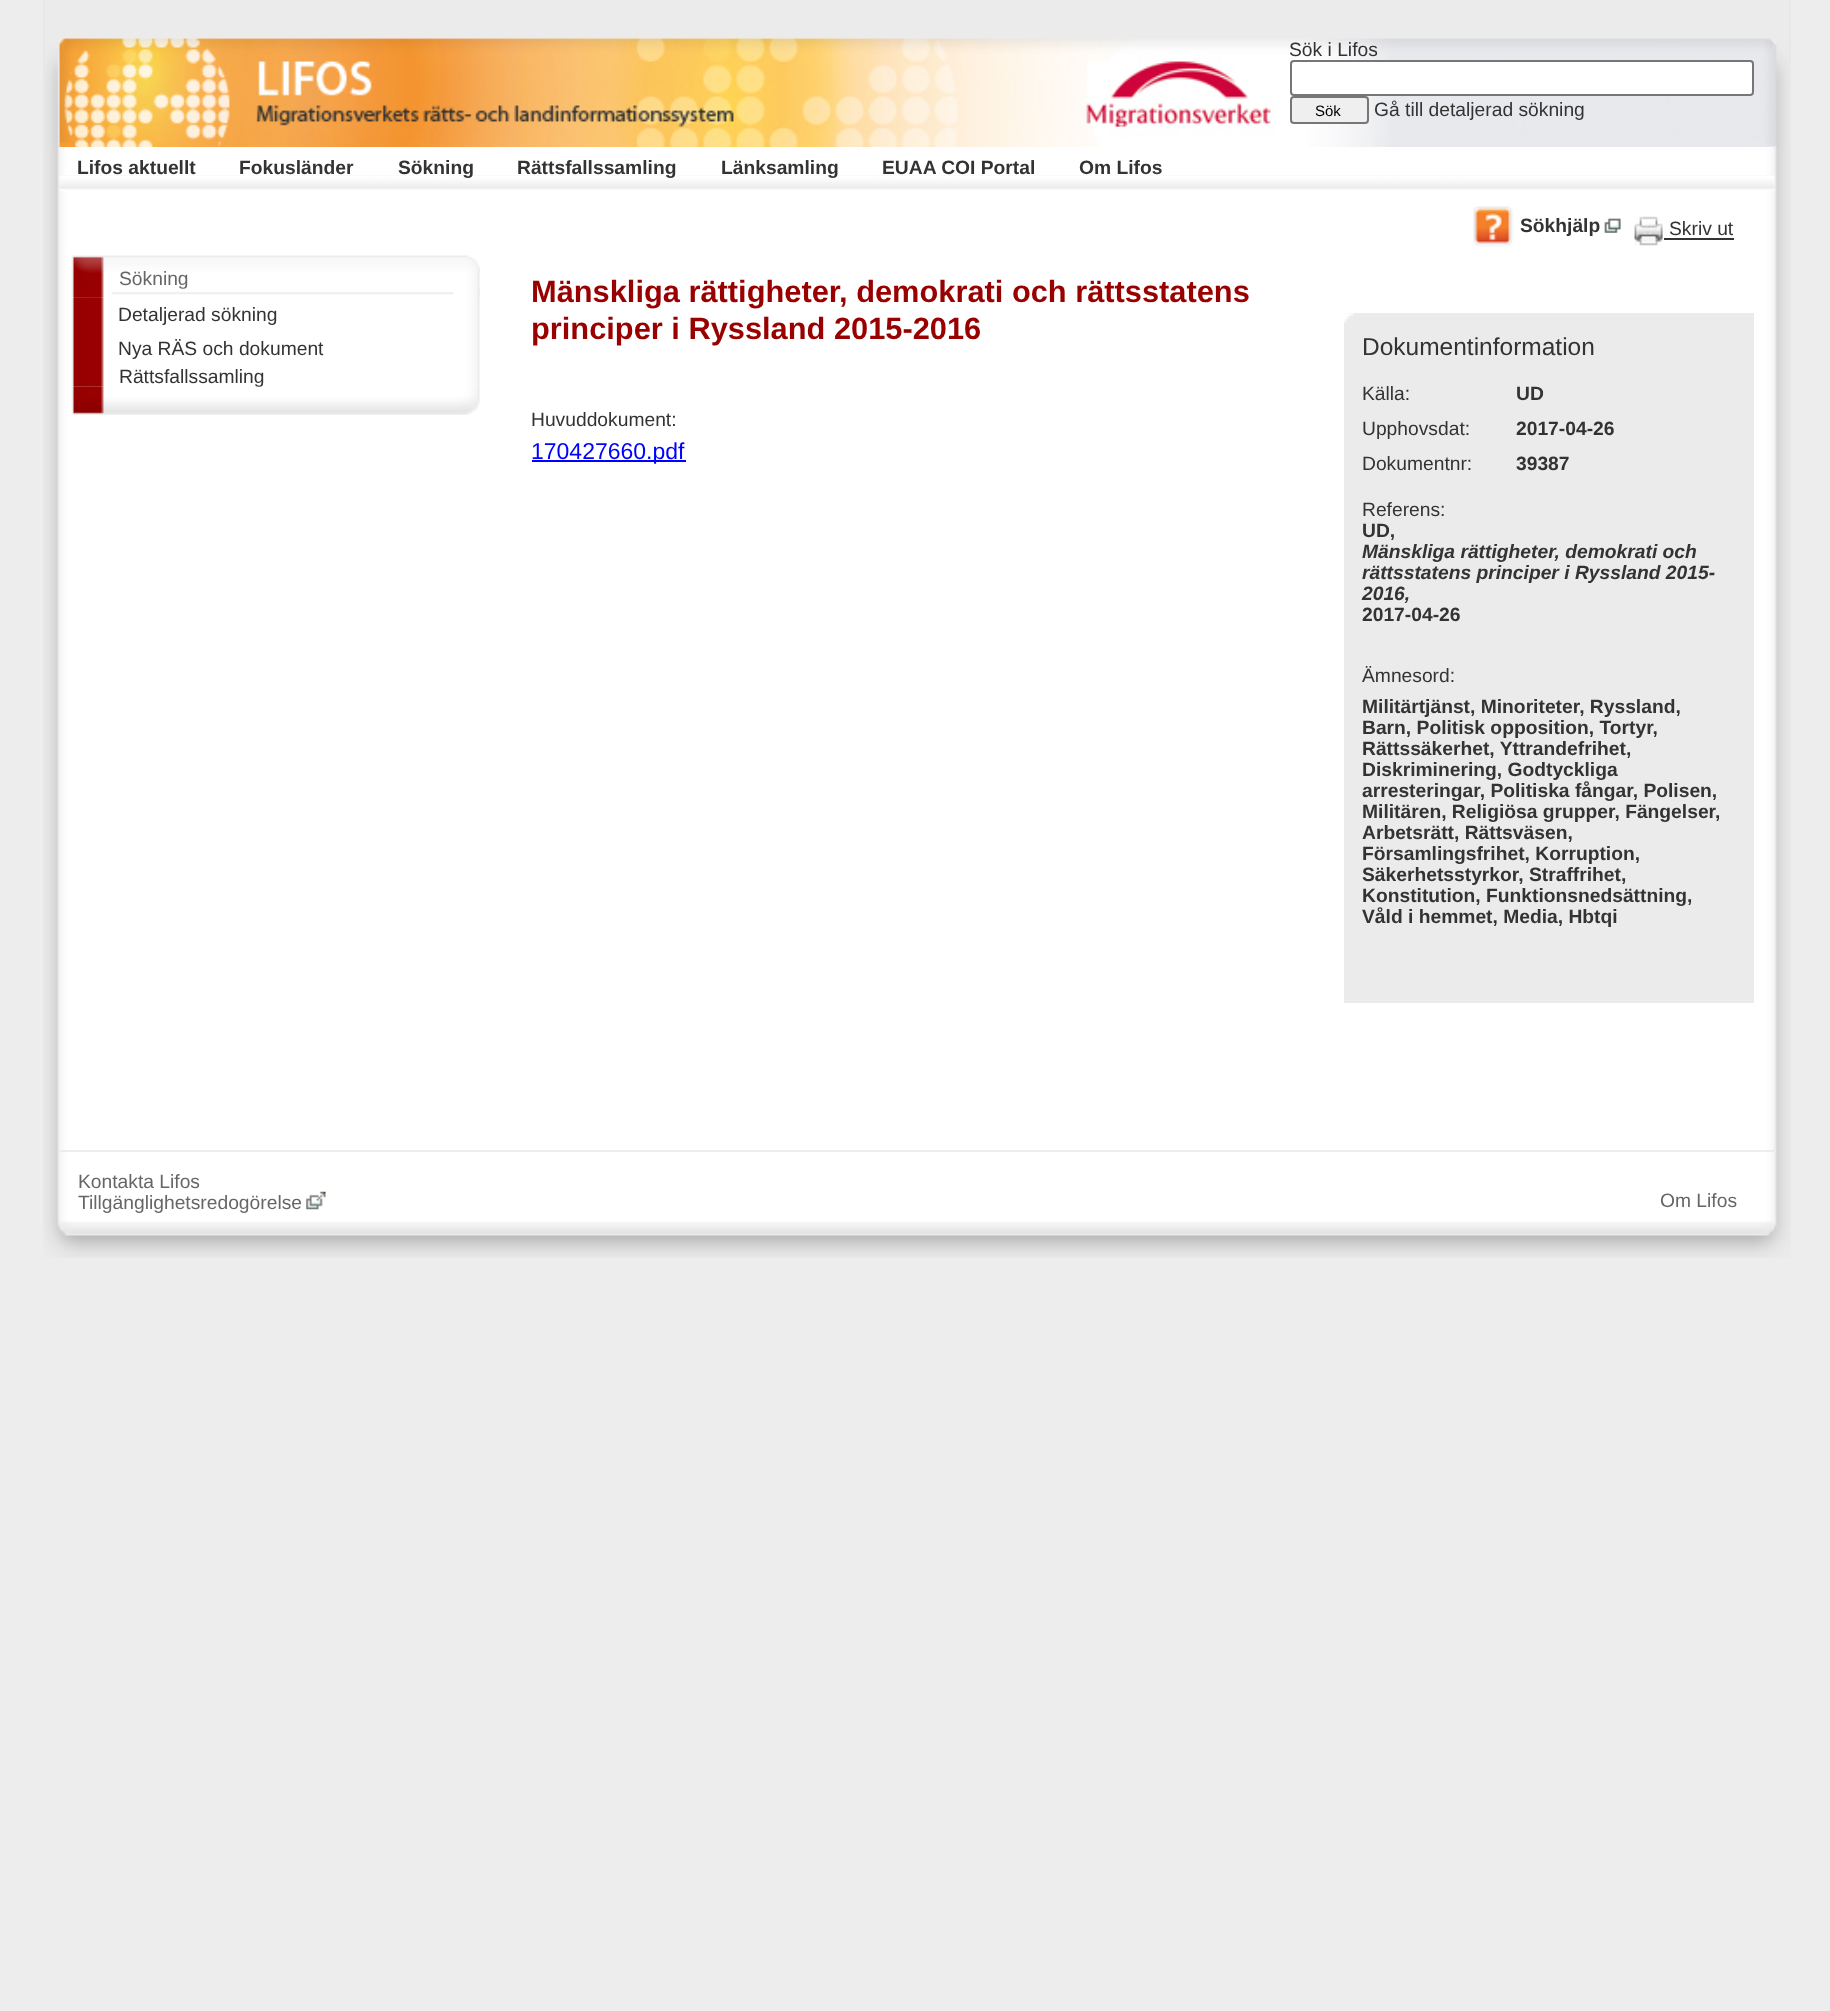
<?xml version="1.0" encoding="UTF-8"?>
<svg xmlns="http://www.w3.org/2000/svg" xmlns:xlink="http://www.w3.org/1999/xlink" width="1830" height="2011">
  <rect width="100%" height="100%" fill="#ecedec" />
  <image x="43" y="0" width="1748" height="1222" xlink:href="image1.png" />
  <image x="45" y="0" width="1744" height="147" xlink:href="image2.png" />
  <rect x="1291" y="61" width="462" height="34" rx="3" fill="#ffffff" stroke="#767676" stroke-width="2" />
  <rect x="1291" y="97" width="77" height="26" rx="3" fill="#efefef" stroke="#767676" stroke-width="2" />
  <image x="59" y="175" width="1716" height="16" xlink:href="image3.png" />
  <image x="71" y="267" width="409" height="31" xlink:href="image5.png" />
  <image x="71" y="255" width="409" height="18" xlink:href="image4.png" />
  <image x="71" y="297" width="409" height="90" xlink:href="image7.png" />
  <rect x="532" y="460" width="154" height="2" fill="#0000ff" />
  <image x="1473" y="206" width="41" height="41" xlink:href="image9.png" />
  <image x="1604" y="218" width="17" height="15" xlink:href="image10.png" />
  <image x="1634" y="216" width="29" height="30" xlink:href="image11.png" />
  <rect x="1664" y="238" width="70" height="2" fill="#333333" />
  <rect x="1344" y="313" width="410" height="690" fill="#ecebec" />
  <image x="1344" y="313" width="10" height="10" xlink:href="image12.png" />
  <rect x="60" y="1150" width="1716" height="2" fill="#ecedec" />
  <image x="306" y="1191" width="20" height="19" xlink:href="image13.png" />
  <image x="43" y="1221" width="1748" height="37" xlink:href="image14.png" />
  <text x="1289" y="56" style="font-family: Liberation Sans; font-size: 19.25px; fill: #333333">Sök i Lifos</text>
  <text x="1315" y="116" style="font-family: Liberation Sans; font-size: 15px; fill: #000000">Sök</text>
  <text x="1374" y="116" style="font-family: Liberation Sans; font-size: 19.25px; fill: #333333">Gå till detaljerad sökning</text>
  <text x="77" y="174" style="font-family: Liberation Sans; font-size: 19.25px; font-weight: bold; fill: #333333">Lifos aktuellt</text>
  <text x="239" y="174" style="font-family: Liberation Sans; font-size: 19.25px; font-weight: bold; fill: #333333">Fokusländer</text>
  <text x="398" y="174" style="font-family: Liberation Sans; font-size: 19.25px; font-weight: bold; fill: #333333">Sökning</text>
  <text x="517" y="174" style="font-family: Liberation Sans; font-size: 19.25px; font-weight: bold; fill: #333333">Rättsfallssamling</text>
  <text x="721" y="174" style="font-family: Liberation Sans; font-size: 19.25px; font-weight: bold; fill: #333333">Länksamling</text>
  <text x="882" y="174" style="font-family: Liberation Sans; font-size: 19.25px; font-weight: bold; fill: #333333">EUAA COI Portal</text>
  <text x="1079" y="174" style="font-family: Liberation Sans; font-size: 19.25px; font-weight: bold; fill: #333333">Om Lifos</text>
  <text x="119" y="285" style="font-family: Liberation Sans; font-size: 19.25px; fill: #666666">Sökning</text>
  <image x="73" y="288" width="407" height="10" xlink:href="image6.png" />
  <text x="118" y="321" style="font-family: Liberation Sans; font-size: 19.25px; fill: #333333">Detaljerad sökning</text>
  <text x="118" y="355" style="font-family: Liberation Sans; font-size: 19.25px; fill: #333333">Nya RÄS och dokument</text>
  <text x="119" y="383" style="font-family: Liberation Sans; font-size: 19.25px; fill: #333333">Rättsfallssamling</text>
  <image x="71" y="386" width="409" height="29" xlink:href="image8.png" />
  <text x="531" y="302" style="font-family: Liberation Sans; font-size: 30.8px; font-weight: bold; fill: #990000">Mänskliga rättigheter, demokrati och rättsstatens</text>
  <text x="531" y="339" style="font-family: Liberation Sans; font-size: 30.8px; font-weight: bold; fill: #990000">principer i Ryssland 2015-2016</text>
  <text x="531" y="426" style="font-family: Liberation Sans; font-size: 19.25px; fill: #333333">Huvuddokument:</text>
  <text x="531" y="459" style="font-family: Liberation Sans; font-size: 23px; fill: #0000ff">170427660.pdf</text>
  <text x="1520" y="232" style="font-family: Liberation Sans; font-size: 19.25px; font-weight: bold; fill: #333333">Sökhjälp</text>
  <text x="1669" y="235" style="font-family: Liberation Sans; font-size: 19.25px; fill: #333333">Skriv ut</text>
  <text x="1362" y="355" style="font-family: Liberation Sans; font-size: 24.5px; fill: #333333">Dokumentinformation</text>
  <text x="1362" y="400" style="font-family: Liberation Sans; font-size: 19.25px; fill: #333333">Källa:</text>
  <text x="1516" y="400" style="font-family: Liberation Sans; font-size: 19.25px; font-weight: bold; fill: #333333">UD</text>
  <text x="1362" y="435" style="font-family: Liberation Sans; font-size: 19.25px; fill: #333333">Upphovsdat:</text>
  <text x="1516" y="435" style="font-family: Liberation Sans; font-size: 19.25px; font-weight: bold; fill: #333333">2017-04-26</text>
  <text x="1362" y="470" style="font-family: Liberation Sans; font-size: 19.25px; fill: #333333">Dokumentnr:</text>
  <text x="1516" y="470" style="font-family: Liberation Sans; font-size: 19.25px; font-weight: bold; fill: #333333">39387</text>
  <text x="1362" y="516" style="font-family: Liberation Sans; font-size: 19.25px; fill: #333333">Referens:</text>
  <text x="1362" y="537" style="font-family: Liberation Sans; font-size: 19.25px; font-weight: bold; fill: #333333">UD,</text>
  <text x="1362" y="558" style="font-family: Liberation Sans; font-size: 19.25px; font-weight: bold; font-style: italic; fill: #333333">Mänskliga rättigheter, demokrati och</text>
  <text x="1362" y="579" style="font-family: Liberation Sans; font-size: 19.25px; font-weight: bold; font-style: italic; fill: #333333">rättsstatens principer i Ryssland 2015-</text>
  <text x="1362" y="600" style="font-family: Liberation Sans; font-size: 19.25px; font-weight: bold; font-style: italic; fill: #333333">2016,</text>
  <text x="1362" y="621" style="font-family: Liberation Sans; font-size: 19.25px; font-weight: bold; fill: #333333">2017-04-26</text>
  <text x="1362" y="682" style="font-family: Liberation Sans; font-size: 19.25px; fill: #333333">Ämnesord:</text>
  <text x="1362" y="713" style="font-family: Liberation Sans; font-size: 19.25px; font-weight: bold; fill: #333333">Militärtjänst, Minoriteter, Ryssland,</text>
  <text x="1362" y="734" style="font-family: Liberation Sans; font-size: 19.25px; font-weight: bold; fill: #333333">Barn, Politisk opposition, Tortyr,</text>
  <text x="1362" y="755" style="font-family: Liberation Sans; font-size: 19.25px; font-weight: bold; fill: #333333">Rättssäkerhet, Yttrandefrihet,</text>
  <text x="1362" y="776" style="font-family: Liberation Sans; font-size: 19.25px; font-weight: bold; fill: #333333">Diskriminering, Godtyckliga</text>
  <text x="1362" y="797" style="font-family: Liberation Sans; font-size: 19.25px; font-weight: bold; fill: #333333">arresteringar, Politiska fångar, Polisen,</text>
  <text x="1362" y="818" style="font-family: Liberation Sans; font-size: 19.25px; font-weight: bold; fill: #333333">Militären, Religiösa grupper, Fängelser,</text>
  <text x="1362" y="839" style="font-family: Liberation Sans; font-size: 19.25px; font-weight: bold; fill: #333333">Arbetsrätt, Rättsväsen,</text>
  <text x="1362" y="860" style="font-family: Liberation Sans; font-size: 19.25px; font-weight: bold; fill: #333333">Församlingsfrihet, Korruption,</text>
  <text x="1362" y="881" style="font-family: Liberation Sans; font-size: 19.25px; font-weight: bold; fill: #333333">Säkerhetsstyrkor, Straffrihet,</text>
  <text x="1362" y="902" style="font-family: Liberation Sans; font-size: 19.25px; font-weight: bold; fill: #333333">Konstitution, Funktionsnedsättning,</text>
  <text x="1362" y="923" style="font-family: Liberation Sans; font-size: 19.25px; font-weight: bold; fill: #333333">Våld i hemmet, Media, Hbtqi</text>
  <text x="78" y="1188" style="font-family: Liberation Sans; font-size: 19.25px; fill: #666666">Kontakta Lifos</text>
  <text x="78" y="1209" style="font-family: Liberation Sans; font-size: 19.25px; fill: #666666">Tillgänglighetsredogörelse</text>
  <text x="1660" y="1207" style="font-family: Liberation Sans; font-size: 19.25px; fill: #666666">Om Lifos</text>
</svg>
